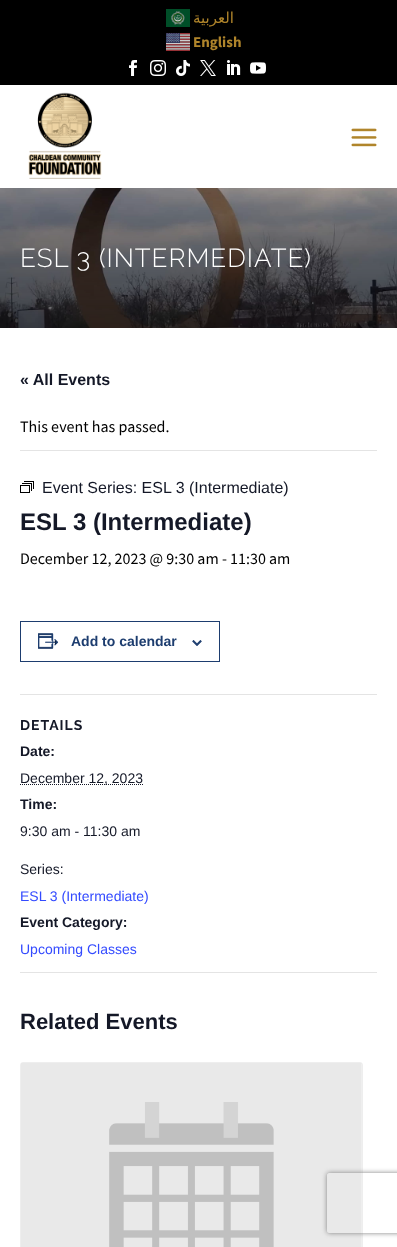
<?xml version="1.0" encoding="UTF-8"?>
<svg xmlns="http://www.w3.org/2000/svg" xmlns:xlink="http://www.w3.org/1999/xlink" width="397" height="1247">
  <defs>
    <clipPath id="clip1"><path d="M 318 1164 h 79 v 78 h -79 z m 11 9 h 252 c 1 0 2 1 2 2 v 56 c 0 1 -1 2 -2 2 h -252 c -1 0 -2 -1 -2 -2 v -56 c 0 -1 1 -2 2 -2 z" clip-rule="evenodd" /></clipPath>
  </defs>
  <rect width="100%" height="100%" fill="#ffffff" />
  <rect width="397" height="85" fill="#000000" />
  <image x="166" y="9" width="24" height="18" xlink:href="image1.png" />
  <image x="166" y="33" width="24" height="18" xlink:href="image2.png" />
  <image x="129" y="60" width="8" height="16" xlink:href="image3.png" />
  <image x="150" y="60" width="16" height="16" xlink:href="image4.png" />
  <image x="176" y="60" width="14" height="16" xlink:href="image5.png" />
  <image x="200" y="60" width="16" height="16" xlink:href="image6.png" />
  <image x="227" y="60" width="14" height="15" xlink:href="image7.png" />
  <image x="250" y="62" width="16" height="12" xlink:href="image8.png" />
  <image x="28" y="92" width="74" height="87" xlink:href="image9.png" />
  <image x="351" y="128" width="26" height="19" xlink:href="image10.png" />
  <image x="0" y="188" width="397" height="140" xlink:href="image11.png" />
  <rect x="20" y="450" width="357" height="1" fill="#e4e4e4" />
  <image x="20" y="481" width="14" height="12" xlink:href="image12.png" />
  <rect x="20.5" y="621.5" width="199" height="40" fill="none" stroke="#1d3d6f" />
  <image x="38" y="633" width="21" height="16" xlink:href="image13.png" />
  <image x="192" y="640" width="10" height="6" xlink:href="image14.png" />
  <rect x="20" y="694" width="357" height="1" fill="#e4e4e4" />
  <path d="M 20 784.5 h 123" fill="none" stroke="#141827" stroke-dasharray="1 1" />
  <rect x="20" y="972" width="357" height="1" fill="#e4e4e4" />
  <rect x="20.5" y="1062.5" width="342" height="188" rx="2.5" fill="#fafafa" stroke="#eeeeee" />
  <image x="21" y="1063" width="341" height="184" xlink:href="image15.png" />
  <g clip-path="url(#clip1)">
    <rect x="327" y="1173" width="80" height="60" rx="2" fill="#808080" filter="blur(2.5px)" />
  </g>
  <text x="234" y="23" style="font-family: DejaVu Sans; font-size: 15px; direction: rtl; fill: #b0852b">العربية</text>
  <text x="193" y="47" style="font-family: Source Sans Pro; font-size: 15px; font-weight: bold; fill: #b0852b">English</text>
  <text x="20" y="267" style="font-family: 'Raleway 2'; font-size: 26px; font-weight: 100; letter-spacing: 1px; fill: #ffffff">ESL 3 (INTERMEDIATE)</text>
  <text x="20" y="385" style="font-family: Liberation Sans; font-size: 16px; font-weight: bold; fill: #141827">« All Events</text>
  <text x="20" y="432" style="font-family: Source Sans Pro; font-size: 16px; fill: #000000">This event has passed.</text>
  <text x="42" y="493" style="font-family: Liberation Sans; font-size: 16px; fill: #141827">Event Series: ESL 3 (Intermediate)</text>
  <text x="20" y="530" style="font-family: Liberation Sans; font-size: 24px; font-weight: bold; fill: #141827">ESL 3 (Intermediate)</text>
  <text x="20" y="564" style="font-family: Source Sans Pro; font-size: 16px; fill: #000000">December 12, 2023 @ 9:30 am - 11:30 am</text>
  <text x="71" y="646" style="font-family: Liberation Sans; font-size: 14px; font-weight: bold; fill: #1d3d6f">Add to calendar</text>
  <text x="20" y="730" style="font-family: Raleway; font-size: 14px; font-weight: 100; letter-spacing: 1px; fill: #141827">DETAILS</text>
  <text x="20" y="756" style="font-family: Liberation Sans; font-size: 14px; font-weight: bold; fill: #141827">Date:</text>
  <text x="20" y="783" style="font-family: Liberation Sans; font-size: 14px; fill: #141827">December 12, 2023</text>
  <text x="20" y="809" style="font-family: Liberation Sans; font-size: 14px; font-weight: bold; fill: #141827">Time:</text>
  <text x="20" y="836" style="font-family: Liberation Sans; font-size: 14px; fill: #141827">9:30 am - 11:30 am</text>
  <text x="20" y="874" style="font-family: Liberation Sans; font-size: 14px; fill: #141827">Series:</text>
  <text x="20" y="901" style="font-family: Liberation Sans; font-size: 14px; fill: #334aff">ESL 3 (Intermediate)</text>
  <text x="20" y="927" style="font-family: Liberation Sans; font-size: 14px; font-weight: bold; fill: #141827">Event Category:</text>
  <text x="20" y="954" style="font-family: Liberation Sans; font-size: 14px; fill: #334aff">Upcoming Classes</text>
  <text x="20" y="1029" style="font-family: Liberation Sans; font-size: 22px; font-weight: bold; fill: #141827">Related Events</text>
</svg>
